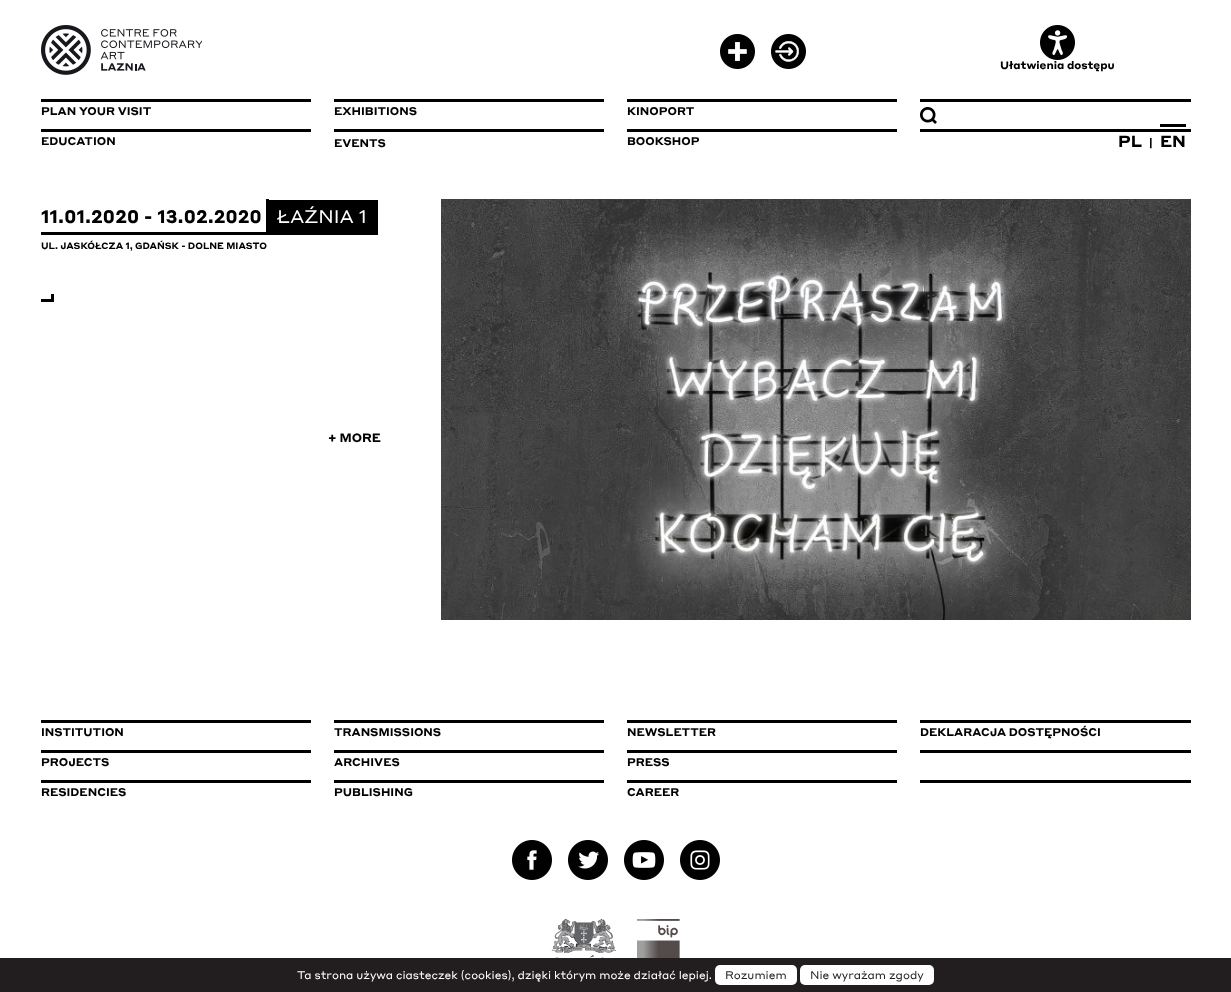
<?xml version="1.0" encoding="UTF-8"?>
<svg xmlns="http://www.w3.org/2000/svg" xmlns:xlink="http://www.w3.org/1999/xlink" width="1231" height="992">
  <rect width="100%" height="100%" fill="#ffffff" />
  <image x="41" y="25" width="161" height="50" xlink:href="image1.png" />
  <image x="720" y="34" width="35" height="35" xlink:href="image2.png" />
  <image x="771" y="34" width="35" height="35" xlink:href="image3.png" />
  <image x="1040" y="25" width="35" height="35" xlink:href="image4.png" />
  <rect x="41" y="99" width="270" height="3" fill="#000000" />
  <rect x="334" y="99" width="270" height="3" fill="#000000" />
  <rect x="627" y="99" width="270" height="3" fill="#000000" />
  <rect x="920" y="99" width="271" height="3" fill="#000000" />
  <image x="920" y="107" width="17" height="17" xlink:href="image5.png" />
  <rect x="41" y="129" width="270" height="3" fill="#000000" />
  <rect x="334" y="129" width="270" height="3" fill="#000000" />
  <rect x="627" y="129" width="270" height="3" fill="#000000" />
  <rect x="920" y="129" width="271" height="3" fill="#000000" />
  <rect x="1160" y="124" width="26" height="3" fill="#000000" />
  <rect x="266" y="199" width="3" height="36" fill="#000000" />
  <rect x="41" y="232" width="228" height="3" fill="#000000" />
  <rect x="269" y="200" width="109" height="35" fill="#000000" />
  <rect x="51" y="294" width="3" height="8" fill="#000000" />
  <rect x="41" y="299" width="13" height="3" fill="#000000" />
  <image x="441" y="199" width="750" height="421" xlink:href="image6.png" />
  <rect x="41" y="720" width="270" height="3" fill="#000000" />
  <rect x="334" y="720" width="270" height="3" fill="#000000" />
  <rect x="627" y="720" width="270" height="3" fill="#000000" />
  <rect x="920" y="720" width="271" height="3" fill="#000000" />
  <rect x="920" y="750" width="271" height="3" fill="#000000" />
  <rect x="41" y="750" width="270" height="3" fill="#000000" />
  <rect x="334" y="750" width="270" height="3" fill="#000000" />
  <rect x="627" y="750" width="270" height="3" fill="#000000" />
  <rect x="920" y="780" width="271" height="3" fill="#000000" />
  <rect x="41" y="780" width="270" height="3" fill="#000000" />
  <rect x="334" y="780" width="270" height="3" fill="#000000" />
  <rect x="627" y="780" width="270" height="3" fill="#000000" />
  <image x="512" y="840" width="40" height="40" xlink:href="image7.png" />
  <image x="568" y="840" width="40" height="40" xlink:href="image8.png" />
  <image x="624" y="840" width="40" height="40" xlink:href="image9.png" />
  <image x="680" y="840" width="40" height="40" xlink:href="image10.png" />
  <image x="551" y="919" width="65" height="39" xlink:href="image11.png" />
  <image x="637" y="919" width="43" height="39" xlink:href="image12.png" />
  <rect y="958" width="1231" height="34" fill="#221e20" />
  <rect x="715" y="965" width="82" height="20" rx="5" fill="#ffffff" />
  <rect x="800" y="965" width="134" height="20" rx="5" fill="#ffffff" />
  <text x="1000" y="69" style="font-family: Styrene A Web; font-size: 10.75px; font-weight: bold; fill: #000000">Ułatwienia dostępu</text>
  <text x="41" y="115" style="font-family: Styrene A Web; font-size: 11px; font-weight: bold; fill: #000000">PLAN YOUR VISIT</text>
  <text x="334" y="115" style="font-family: Styrene A Web; font-size: 11px; font-weight: bold; fill: #000000">EXHIBITIONS</text>
  <text x="627" y="115" style="font-family: Styrene A Web; font-size: 11px; font-weight: bold; fill: #000000">KINOPORT</text>
  <text x="41" y="145" style="font-family: Styrene A Web; font-size: 11px; font-weight: bold; fill: #000000">EDUCATION</text>
  <text x="334" y="147" style="font-family: Styrene A Web; font-size: 11px; font-weight: bold; fill: #000000">EVENTS</text>
  <text x="627" y="145" style="font-family: Styrene A Web; font-size: 11px; font-weight: bold; fill: #000000">BOOKSHOP</text>
  <text x="1118" y="147" style="font-family: Styrene A Web; font-size: 16px; font-weight: bold; fill: #000000">PL</text>
  <text x="1149" y="147" style="font-family: Styrene A Web; font-size: 11px; font-weight: bold; fill: #000000">|</text>
  <text x="1160" y="147" style="font-family: Styrene A Web; font-size: 16px; font-weight: bold; fill: #000000">EN</text>
  <text x="41" y="223" style="font-family: Styrene A Web; font-size: 18px; font-weight: bold; fill: #000000">11.01.2020 - 13.02.2020</text>
  <text x="277" y="223" style="font-family: Styrene A Web; font-size: 18px; fill: #ffffff">ŁAŹNIA 1</text>
  <text x="41" y="249" style="font-family: Styrene A Web; font-size: 9px; font-weight: bold; fill: #000000">UL. JASKÓŁCZA 1, GDAŃSK - DOLNE MIASTO</text>
  <text x="328" y="442" style="font-family: Styrene A Web; font-size: 12px; font-weight: bold; fill: #000000">+ MORE</text>
  <text x="41" y="736" style="font-family: Styrene A Web; font-size: 11px; font-weight: bold; fill: #000000">INSTITUTION</text>
  <text x="334" y="736" style="font-family: Styrene A Web; font-size: 11px; font-weight: bold; fill: #000000">TRANSMISSIONS</text>
  <text x="627" y="736" style="font-family: Styrene A Web; font-size: 11px; font-weight: bold; fill: #000000">NEWSLETTER</text>
  <text x="920" y="736" style="font-family: Styrene A Web; font-size: 11px; font-weight: bold; fill: #000000">DEKLARACJA DOSTĘPNOŚCI</text>
  <text x="41" y="766" style="font-family: Styrene A Web; font-size: 11px; font-weight: bold; fill: #000000">PROJECTS</text>
  <text x="334" y="766" style="font-family: Styrene A Web; font-size: 11px; font-weight: bold; fill: #000000">ARCHIVES</text>
  <text x="627" y="766" style="font-family: Styrene A Web; font-size: 11px; font-weight: bold; fill: #000000">PRESS</text>
  <text x="41" y="796" style="font-family: Styrene A Web; font-size: 11px; font-weight: bold; fill: #000000">RESIDENCIES</text>
  <text x="334" y="796" style="font-family: Styrene A Web; font-size: 11px; font-weight: bold; fill: #000000">PUBLISHING</text>
  <text x="627" y="796" style="font-family: Styrene A Web; font-size: 11px; font-weight: bold; fill: #000000">CAREER</text>
  <text x="297" y="979" style="font-family: Styrene A Web; font-size: 11px; fill: #ffffff">Ta strona używa ciasteczek (cookies), dzięki którym może działać lepiej.</text>
  <text x="725" y="979" style="font-family: Styrene A Web; font-size: 11px; fill: #221e20">Rozumiem</text>
  <text x="810" y="979" style="font-family: Styrene A Web; font-size: 11px; fill: #221e20">Nie wyrażam zgody</text>
</svg>
